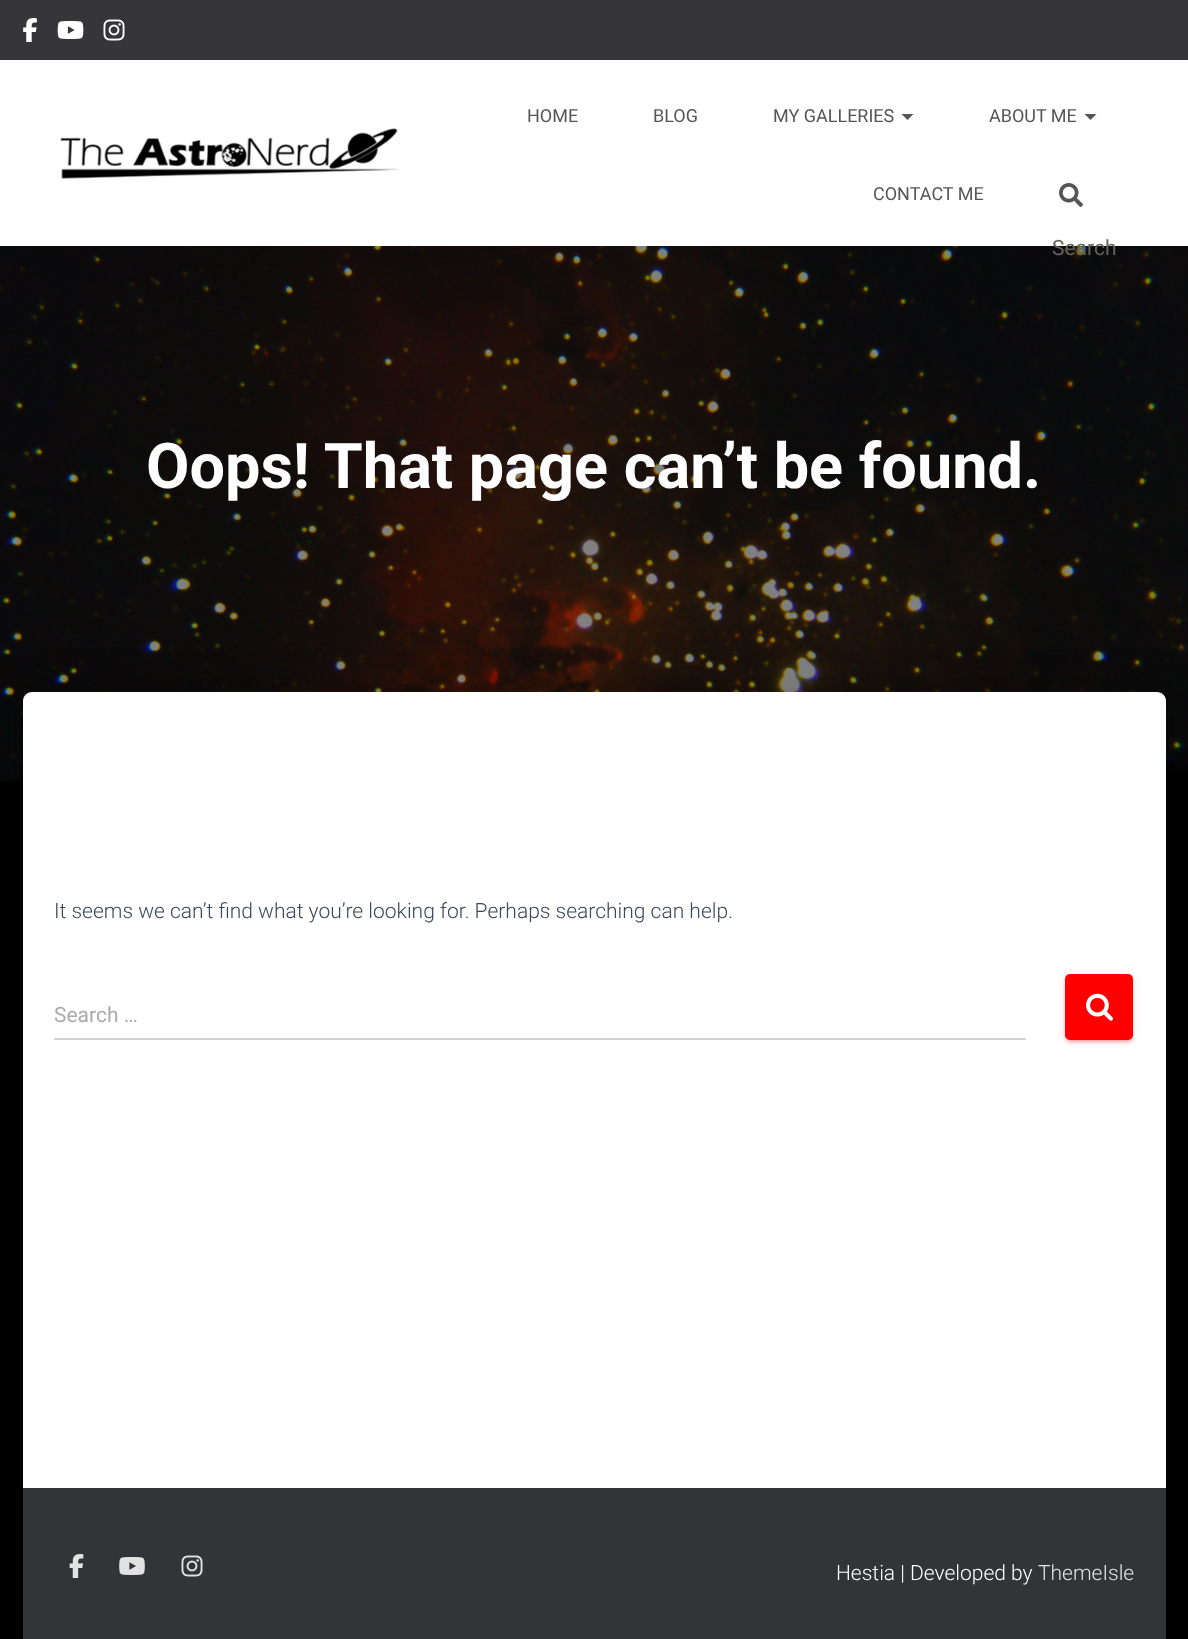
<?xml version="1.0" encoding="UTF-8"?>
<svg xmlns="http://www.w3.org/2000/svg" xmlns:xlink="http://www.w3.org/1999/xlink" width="1188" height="1639">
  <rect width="100%" height="100%" fill="#000000" />
  <rect width="1188" height="60" fill="#363537" />
  <image x="23" y="18" width="14" height="24" xlink:href="image1.png" />
  <image x="57" y="21" width="27" height="18" xlink:href="image2.png" />
  <image x="103" y="19" width="22" height="22" xlink:href="image3.png" />
  <rect y="60" width="1188" height="186" fill="#ffffff" />
  <image x="60" y="128" width="340" height="51" xlink:href="image4.png" />
  <path d="M 901.5 114 h 12 l -6 6 z" fill="#555555" />
  <path d="M 1084.5 114 h 12 l -6 6 z" fill="#555555" />
  <image x="1059" y="183" width="24" height="24" xlink:href="image5.png" />
  <image x="0" y="246" width="1188" height="536" xlink:href="image6.png" />
  <rect x="30" y="711" width="1128" height="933" rx="1.5" fill="#000000" fill-opacity="0.2" filter="blur(7.5px)" />
  <rect x="15" y="693" width="1158" height="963" rx="17" fill="#000000" fill-opacity="0.12" filter="blur(22.5px)" />
  <rect x="20" y="713" width="1149" height="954" rx="12" fill="#000000" fill-opacity="0.14" filter="blur(18px)" />
  <path d="M 32 692 h 1125 c 5 0 9 4 9 9 v 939 h -1143 v -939 c 0 -5 4 -9 9 -9 z" fill="#ffffff" />
  <rect x="54" y="1038" width="972" height="2" fill="#d2d2d2" />
  <rect x="1065" y="975" width="68" height="66" rx="5" fill="#ff0000" fill-opacity="0.12" filter="blur(4px)" />
  <rect x="1068" y="981" width="62" height="60" rx="1.5" fill="#ff0000" fill-opacity="0.2" filter="blur(1px)" />
  <rect x="1065" y="977" width="68" height="66" rx="5" fill="#ff0000" fill-opacity="0.14" filter="blur(1.5px)" />
  <rect x="1065" y="974" width="68" height="66" rx="5" fill="#ff0000" />
  <image x="1086" y="993" width="27" height="28" xlink:href="image7.png" />
  <rect x="23" y="1488" width="1143" height="151" fill="#323437" />
  <image x="69" y="1554" width="15" height="24" xlink:href="image8.png" />
  <image x="119" y="1557" width="26" height="18" xlink:href="image9.png" />
  <image x="181" y="1555" width="22" height="22" xlink:href="image10.png" />
  <text x="527" y="122" style="font-family: Roboto; font-size: 18px; fill: #555555">HOME</text>
  <text x="653" y="122" style="font-family: Roboto; font-size: 18px; fill: #555555">BLOG</text>
  <text x="773" y="122" style="font-family: Roboto; font-size: 18px; fill: #555555">MY GALLERIES</text>
  <text x="989" y="122" style="font-family: Roboto; font-size: 18px; fill: #555555">ABOUT ME</text>
  <text x="873" y="200" style="font-family: Roboto; font-size: 18px; fill: #555555">CONTACT ME</text>
  <text x="1052" y="255" style="font-family: Roboto; font-size: 21px; fill: #63625e">Search</text>
  <text x="146" y="488" style="font-family: Roboto; font-size: 63px; font-weight: bold; fill: #ffffff">Oops! That page can’t be found.</text>
  <text x="54" y="918" style="font-family: Roboto; font-size: 21px; font-weight: 300; fill: #3c4858">It seems we can’t find what you’re looking for. Perhaps searching can help.</text>
  <text x="54" y="1022" style="font-family: Roboto; font-size: 21px; fill: #aaaaaa">Search …</text>
  <text x="836" y="1580" style="font-family: Roboto; font-size: 21px; font-weight: 300; fill: #ffffff">Hestia | Developed by</text>
  <text x="1038" y="1580" style="font-family: Roboto; font-size: 21px; font-weight: 300; fill: #e2e3e3">ThemeIsle</text>
</svg>
